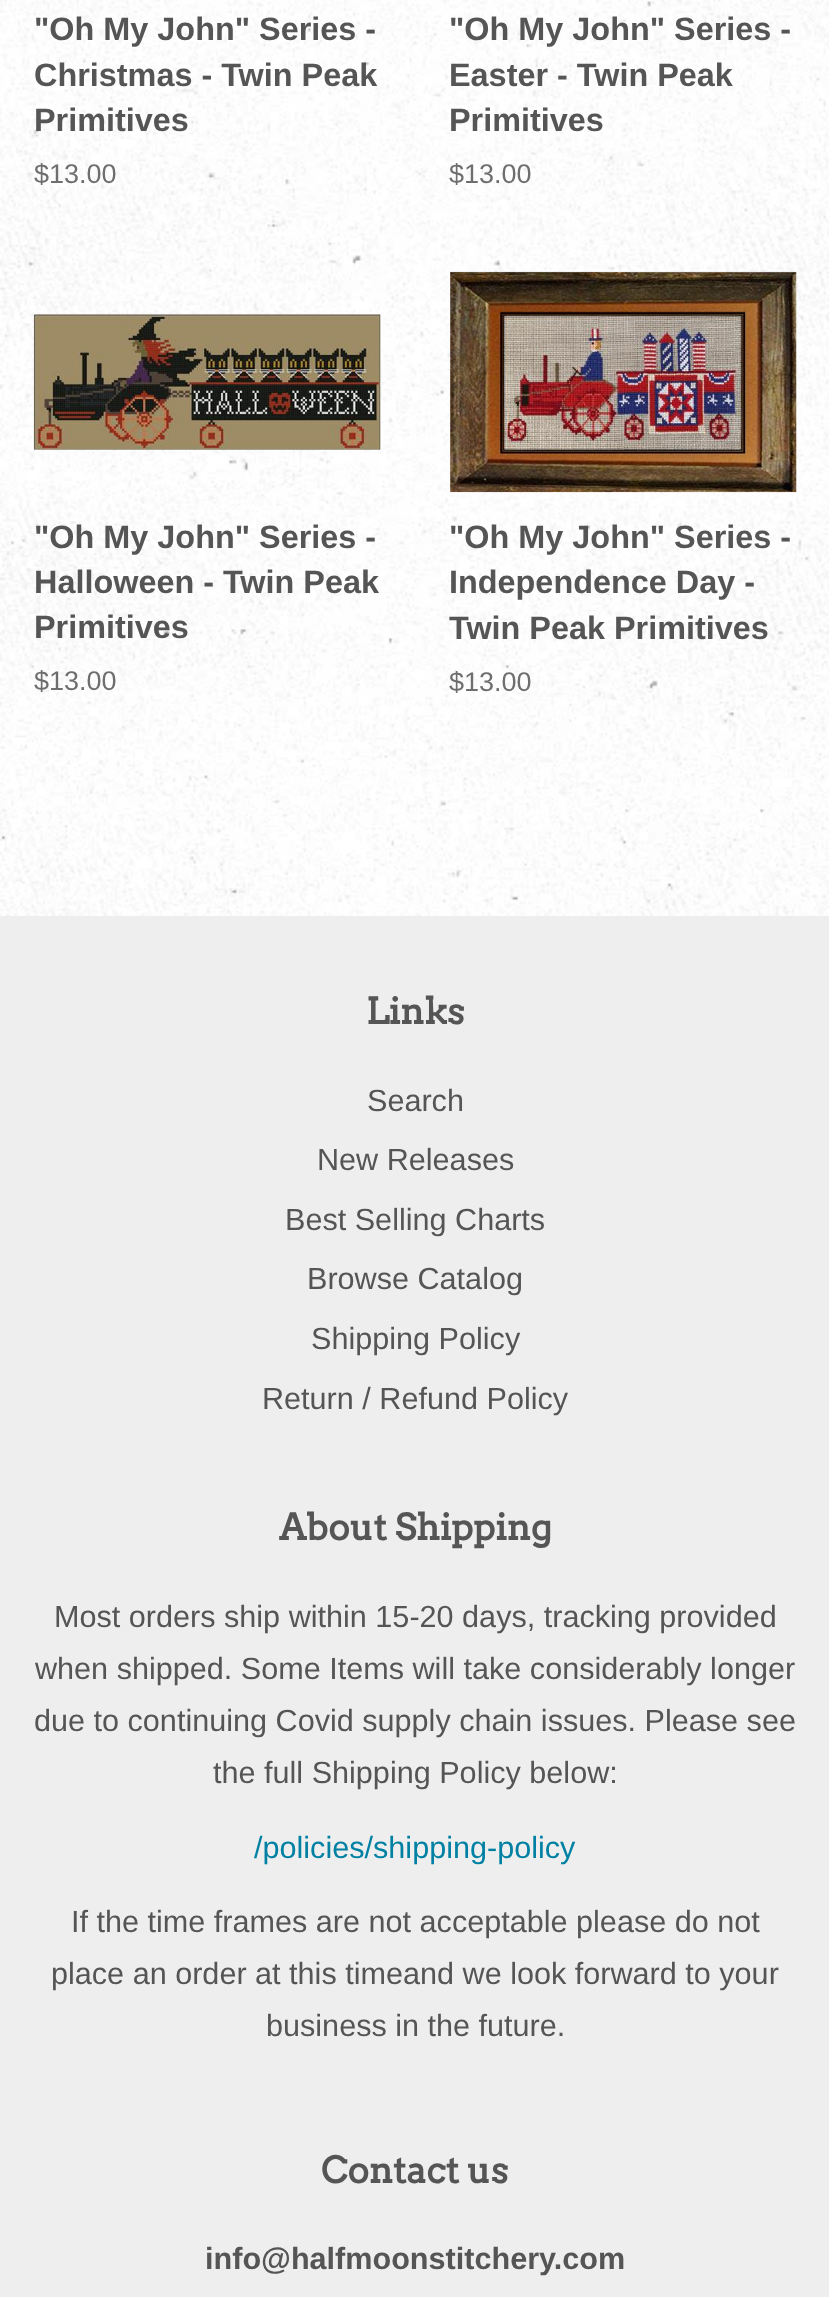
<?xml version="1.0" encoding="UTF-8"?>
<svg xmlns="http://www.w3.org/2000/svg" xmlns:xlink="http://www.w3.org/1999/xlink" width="829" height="2297">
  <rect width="100%" height="100%" fill="#ffffff" />
  <image x="0" y="0" width="829" height="916" xlink:href="image1.png" />
  <image x="33" y="314" width="348" height="136" xlink:href="image2.png" />
  <image x="450" y="271" width="347" height="222" xlink:href="image3.png" />
  <rect y="916" width="829" height="1381" fill="#eeeeee" />
  <text x="34" y="40" style="font-family: Liberation Sans; font-size: 32.4px; font-weight: bold; fill: #555555">"Oh My John" Series -</text>
  <text x="34" y="86" style="font-family: Liberation Sans; font-size: 32.4px; font-weight: bold; fill: #555555">Christmas - Twin Peak</text>
  <text x="34" y="131" style="font-family: Liberation Sans; font-size: 32.4px; font-weight: bold; fill: #555555">Primitives</text>
  <text x="34" y="183" style="font-family: Liberation Sans; font-size: 27px; fill: #6e6e6e">$13.00</text>
  <text x="449" y="40" style="font-family: Liberation Sans; font-size: 32.4px; font-weight: bold; fill: #555555">"Oh My John" Series -</text>
  <text x="449" y="86" style="font-family: Liberation Sans; font-size: 32.4px; font-weight: bold; fill: #555555">Easter - Twin Peak</text>
  <text x="449" y="131" style="font-family: Liberation Sans; font-size: 32.4px; font-weight: bold; fill: #555555">Primitives</text>
  <text x="449" y="183" style="font-family: Liberation Sans; font-size: 27px; fill: #6e6e6e">$13.00</text>
  <text x="34" y="548" style="font-family: Liberation Sans; font-size: 32.4px; font-weight: bold; fill: #555555">"Oh My John" Series -</text>
  <text x="34" y="593" style="font-family: Liberation Sans; font-size: 32.4px; font-weight: bold; fill: #555555">Halloween - Twin Peak</text>
  <text x="34" y="638" style="font-family: Liberation Sans; font-size: 32.4px; font-weight: bold; fill: #555555">Primitives</text>
  <text x="34" y="690" style="font-family: Liberation Sans; font-size: 27px; fill: #6e6e6e">$13.00</text>
  <text x="449" y="548" style="font-family: Liberation Sans; font-size: 32.4px; font-weight: bold; fill: #555555">"Oh My John" Series -</text>
  <text x="449" y="593" style="font-family: Liberation Sans; font-size: 32.4px; font-weight: bold; fill: #555555">Independence Day -</text>
  <text x="449" y="639" style="font-family: Liberation Sans; font-size: 32.4px; font-weight: bold; fill: #555555">Twin Peak Primitives</text>
  <text x="449" y="691" style="font-family: Liberation Sans; font-size: 27px; fill: #6e6e6e">$13.00</text>
  <text x="366" y="1024" style="font-family: Arvo; font-size: 36px; font-weight: bold; fill: #555555">Links</text>
  <text x="367" y="1111" style="font-family: Liberation Sans; font-size: 30.6px; fill: #555555">Search</text>
  <text x="317" y="1170" style="font-family: Liberation Sans; font-size: 30.6px; fill: #555555">New Releases</text>
  <text x="285" y="1230" style="font-family: Liberation Sans; font-size: 30.6px; fill: #555555">Best Selling Charts</text>
  <text x="307" y="1289" style="font-family: Liberation Sans; font-size: 30.6px; fill: #555555">Browse Catalog</text>
  <text x="311" y="1349" style="font-family: Liberation Sans; font-size: 30.6px; fill: #555555">Shipping Policy</text>
  <text x="262" y="1409" style="font-family: Liberation Sans; font-size: 30.6px; fill: #555555">Return / Refund Policy</text>
  <text x="279" y="1540" style="font-family: Arvo; font-size: 36px; font-weight: bold; fill: #555555">About Shipping</text>
  <text x="54" y="1627" style="font-family: Liberation Sans; font-size: 30.6px; fill: #555555">Most orders ship within 15-20 days, tracking provided</text>
  <text x="35" y="1679" style="font-family: Liberation Sans; font-size: 30.6px; fill: #555555">when shipped. Some Items will take considerably longer</text>
  <text x="34" y="1731" style="font-family: Liberation Sans; font-size: 30.6px; fill: #555555">due to continuing Covid supply chain issues. Please see</text>
  <text x="213" y="1783" style="font-family: Liberation Sans; font-size: 30.6px; fill: #555555">the full Shipping Policy below:</text>
  <text x="254" y="1858" style="font-family: Liberation Sans; font-size: 30.6px; fill: #0081a3">/policies/shipping-policy</text>
  <text x="71" y="1932" style="font-family: Liberation Sans; font-size: 30.6px; fill: #555555">If the time frames are not acceptable please do not</text>
  <text x="51" y="1984" style="font-family: Liberation Sans; font-size: 30.6px; fill: #555555">place an order at this timeand we look forward to your</text>
  <text x="266" y="2036" style="font-family: Liberation Sans; font-size: 30.6px; fill: #555555">business in the future.</text>
  <text x="321" y="2183" style="font-family: Arvo; font-size: 36px; font-weight: bold; fill: #555555">Contact us</text>
  <text x="205" y="2269" style="font-family: Liberation Sans; font-size: 30.6px; font-weight: bold; fill: #555555">info@halfmoonstitchery.com</text>
</svg>
